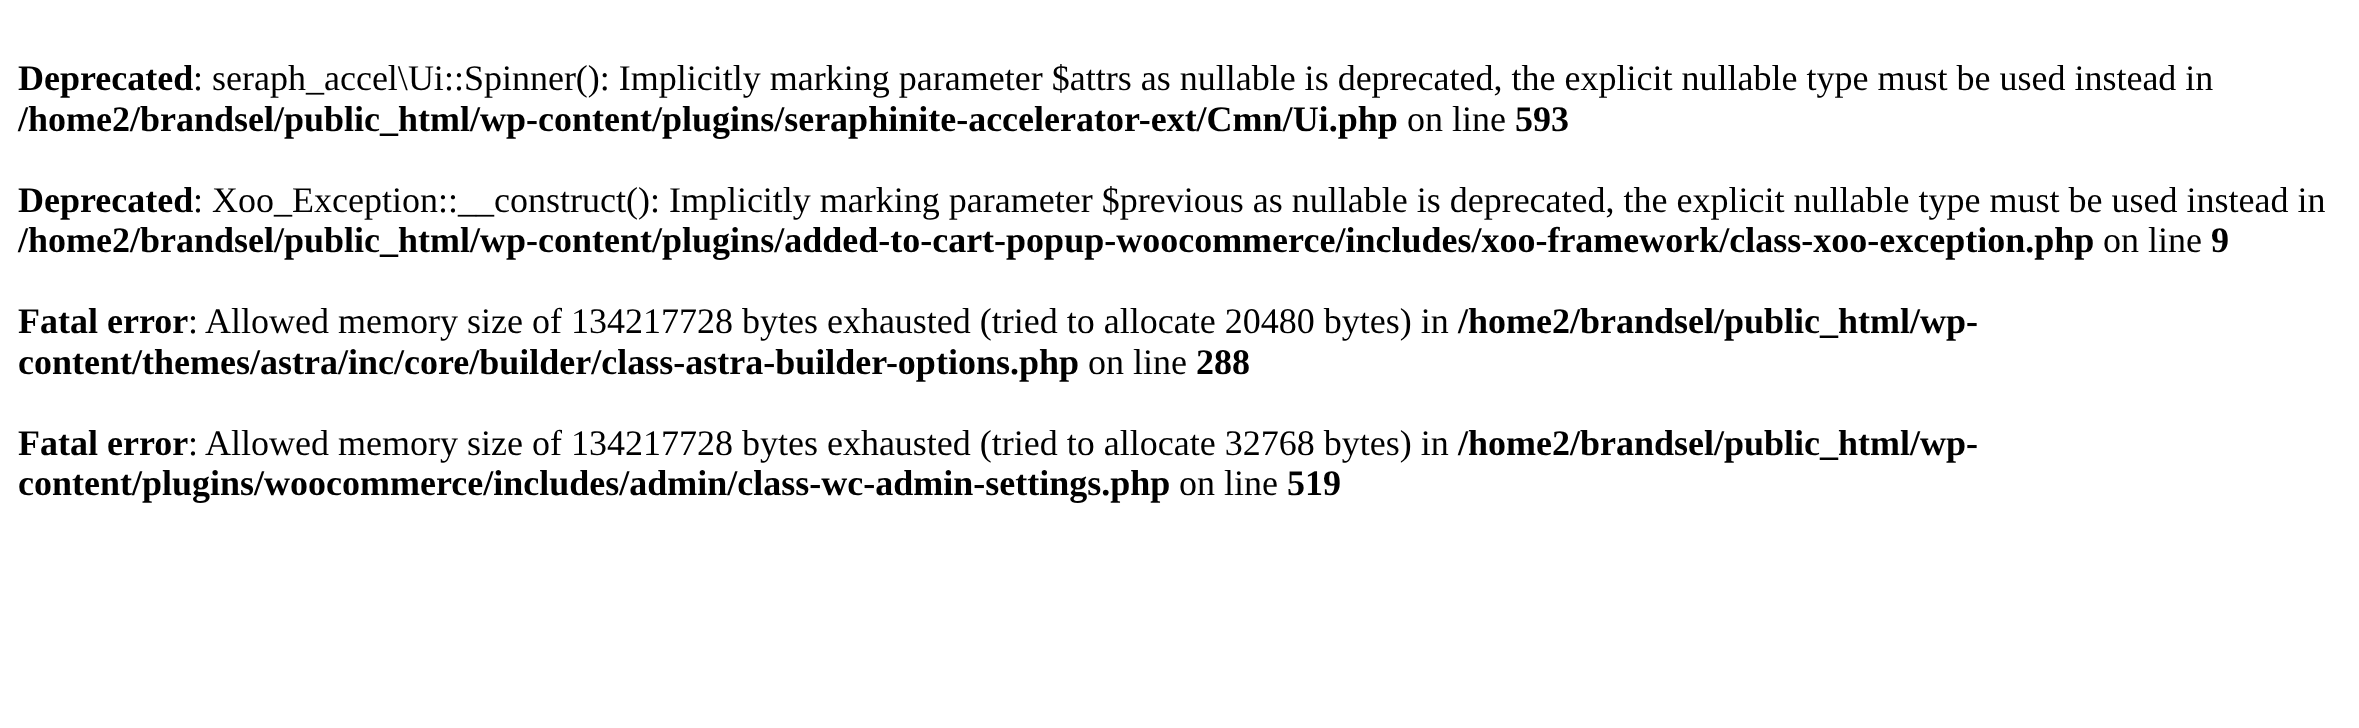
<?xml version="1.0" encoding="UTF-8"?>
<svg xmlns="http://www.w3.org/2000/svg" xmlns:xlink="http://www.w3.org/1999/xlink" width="2359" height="728">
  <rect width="100%" height="100%" fill="#ffffff" />
  <text x="18" y="90" style="font-family: Liberation Serif; font-size: 36px; font-weight: bold; fill: #000000">Deprecated</text>
  <text x="193" y="90" style="font-family: Liberation Serif; font-size: 36px; fill: #000000">: seraph_accel\Ui::Spinner(): Implicitly marking parameter $attrs as nullable is deprecated, the explicit nullable type must be used instead in</text>
  <text x="18" y="131" style="font-family: Liberation Serif; font-size: 36px; font-weight: bold; fill: #000000">/home2/brandsel/public_html/wp-content/plugins/seraphinite-accelerator-ext/Cmn/Ui.php</text>
  <text x="1407" y="131" style="font-family: Liberation Serif; font-size: 36px; fill: #000000">on line</text>
  <text x="1515" y="131" style="font-family: Liberation Serif; font-size: 36px; font-weight: bold; fill: #000000">593</text>
  <text x="18" y="212" style="font-family: Liberation Serif; font-size: 36px; font-weight: bold; fill: #000000">Deprecated</text>
  <text x="193" y="212" style="font-family: Liberation Serif; font-size: 36px; fill: #000000">: Xoo_Exception::__construct(): Implicitly marking parameter $previous as nullable is deprecated, the explicit nullable type must be used instead in</text>
  <text x="18" y="252" style="font-family: Liberation Serif; font-size: 36px; font-weight: bold; fill: #000000">/home2/brandsel/public_html/wp-content/plugins/added-to-cart-popup-woocommerce/includes/xoo-framework/class-xoo-exception.php</text>
  <text x="2103" y="252" style="font-family: Liberation Serif; font-size: 36px; fill: #000000">on line</text>
  <text x="2211" y="252" style="font-family: Liberation Serif; font-size: 36px; font-weight: bold; fill: #000000">9</text>
  <text x="18" y="333" style="font-family: Liberation Serif; font-size: 36px; font-weight: bold; fill: #000000">Fatal error</text>
  <text x="188" y="333" style="font-family: Liberation Serif; font-size: 36px; fill: #000000">:</text>
  <text x="205" y="333" style="font-family: Liberation Serif; font-size: 36px; fill: #000000">Allowed memory size of 134217728 bytes exhausted (tried to allocate 20480 bytes) in</text>
  <text x="1458" y="333" style="font-family: Liberation Serif; font-size: 36px; font-weight: bold; fill: #000000">/home2/brandsel/public_html/wp-</text>
  <text x="18" y="374" style="font-family: Liberation Serif; font-size: 36px; font-weight: bold; fill: #000000">content/themes/astra/inc/core/builder/class-astra-builder-options.php</text>
  <text x="1088" y="374" style="font-family: Liberation Serif; font-size: 36px; fill: #000000">on line</text>
  <text x="1196" y="374" style="font-family: Liberation Serif; font-size: 36px; font-weight: bold; fill: #000000">288</text>
  <text x="18" y="455" style="font-family: Liberation Serif; font-size: 36px; font-weight: bold; fill: #000000">Fatal error</text>
  <text x="188" y="455" style="font-family: Liberation Serif; font-size: 36px; fill: #000000">:</text>
  <text x="205" y="455" style="font-family: Liberation Serif; font-size: 36px; fill: #000000">Allowed memory size of 134217728 bytes exhausted (tried to allocate 32768 bytes) in</text>
  <text x="1458" y="455" style="font-family: Liberation Serif; font-size: 36px; font-weight: bold; fill: #000000">/home2/brandsel/public_html/wp-</text>
  <text x="18" y="495" style="font-family: Liberation Serif; font-size: 36px; font-weight: bold; fill: #000000">content/plugins/woocommerce/includes/admin/class-wc-admin-settings.php</text>
  <text x="1179" y="495" style="font-family: Liberation Serif; font-size: 36px; fill: #000000">on line</text>
  <text x="1287" y="495" style="font-family: Liberation Serif; font-size: 36px; font-weight: bold; fill: #000000">519</text>
</svg>
